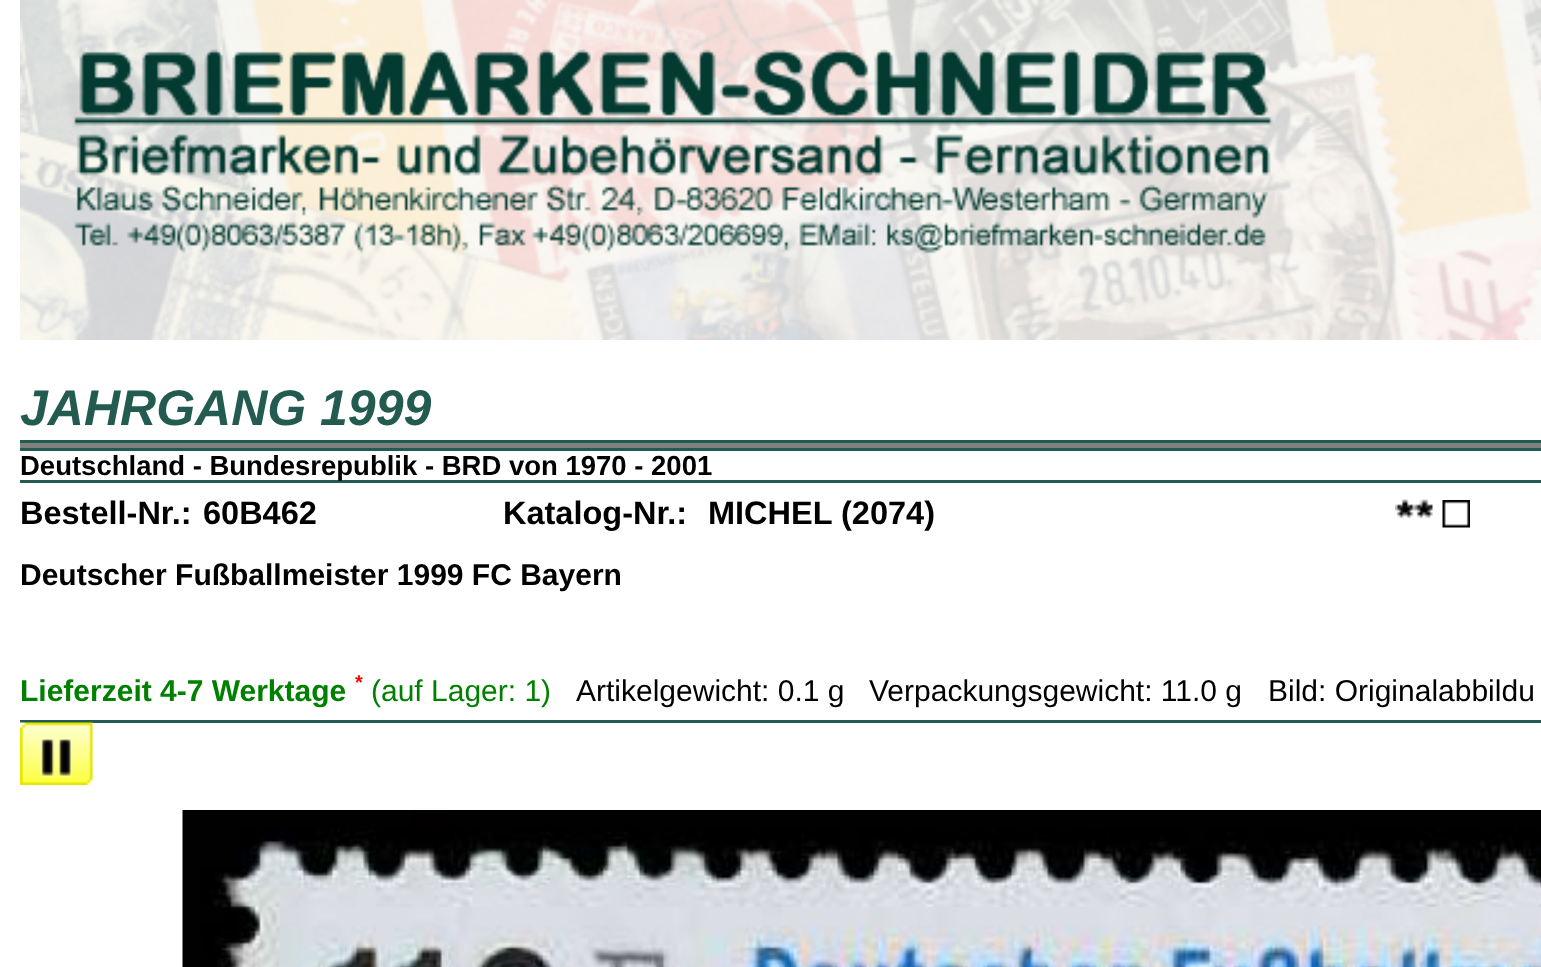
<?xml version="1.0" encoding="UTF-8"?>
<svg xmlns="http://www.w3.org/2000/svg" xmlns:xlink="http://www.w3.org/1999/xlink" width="1541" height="967">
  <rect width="100%" height="100%" fill="#ffffff" />
  <image x="20" y="0" width="1521" height="340" xlink:href="image1.png" />
  <rect x="20" y="443" width="1521" height="5" fill="#808080" />
  <rect x="20" y="440" width="1521" height="3" fill="#235b51" />
  <rect x="20" y="448" width="1521" height="3" fill="#235b51" />
  <rect x="20" y="480" width="1521" height="3" fill="#235b51" />
  <rect x="20" y="720" width="1521" height="3" fill="#235b51" />
  <image x="1395" y="499" width="38" height="20" xlink:href="image2.png" />
  <image x="1442" y="500" width="28" height="28" xlink:href="image3.png" />
  <image x="85" y="722" width="8" height="63" xlink:href="image4.png" />
  <image x="20" y="722" width="65" height="63" xlink:href="image5.png" />
  <image x="40" y="737" width="33" height="41" xlink:href="image6.png" />
  <image x="182" y="810" width="1359" height="157" xlink:href="image7.png" />
  <text x="20" y="425" style="font-family: Liberation Sans; font-size: 50px; font-weight: bold; font-style: italic; fill: #235b51">JAHRGANG 1999</text>
  <text x="20" y="475" style="font-family: Liberation Sans; font-size: 27.5px; font-weight: bold; fill: #000000">Deutschland - Bundesrepublik - BRD von 1970 - 2001</text>
  <text x="20" y="524" style="font-family: Liberation Sans; font-size: 32.5px; font-weight: bold; fill: #000000">Bestell-Nr.:</text>
  <text x="203" y="524" style="font-family: Liberation Sans; font-size: 32.5px; font-weight: bold; fill: #000000">60B462</text>
  <text x="503" y="524" style="font-family: Liberation Sans; font-size: 32.5px; font-weight: bold; fill: #000000">Katalog-Nr.:</text>
  <text x="708" y="524" style="font-family: Liberation Sans; font-size: 32.5px; font-weight: bold; fill: #000000">MICHEL (2074)</text>
  <text x="20" y="585" style="font-family: Liberation Sans; font-size: 30px; font-weight: bold; fill: #000000">Deutscher Fußballmeister 1999 FC Bayern</text>
  <text x="20" y="701" style="font-family: Liberation Sans; font-size: 30px; font-weight: bold; fill: #008000">Lieferzeit 4-7 Werktage</text>
  <text x="355" y="689" style="font-family: Liberation Sans; font-size: 20px; font-weight: bold; fill: #ff0000">*</text>
  <text x="371" y="701" style="font-family: Liberation Sans; font-size: 30px; fill: #008000">(auf Lager: 1)</text>
  <text x="576" y="701" style="font-family: Liberation Sans; font-size: 30px; fill: #000000">Artikelgewicht: 0.1 g</text>
  <text x="869" y="701" style="font-family: Liberation Sans; font-size: 30px; fill: #000000">Verpackungsgewicht: 11.0 g</text>
  <text x="1268" y="701" style="font-family: Liberation Sans; font-size: 30px; fill: #000000">Bild: Originalabbildu</text>
</svg>
